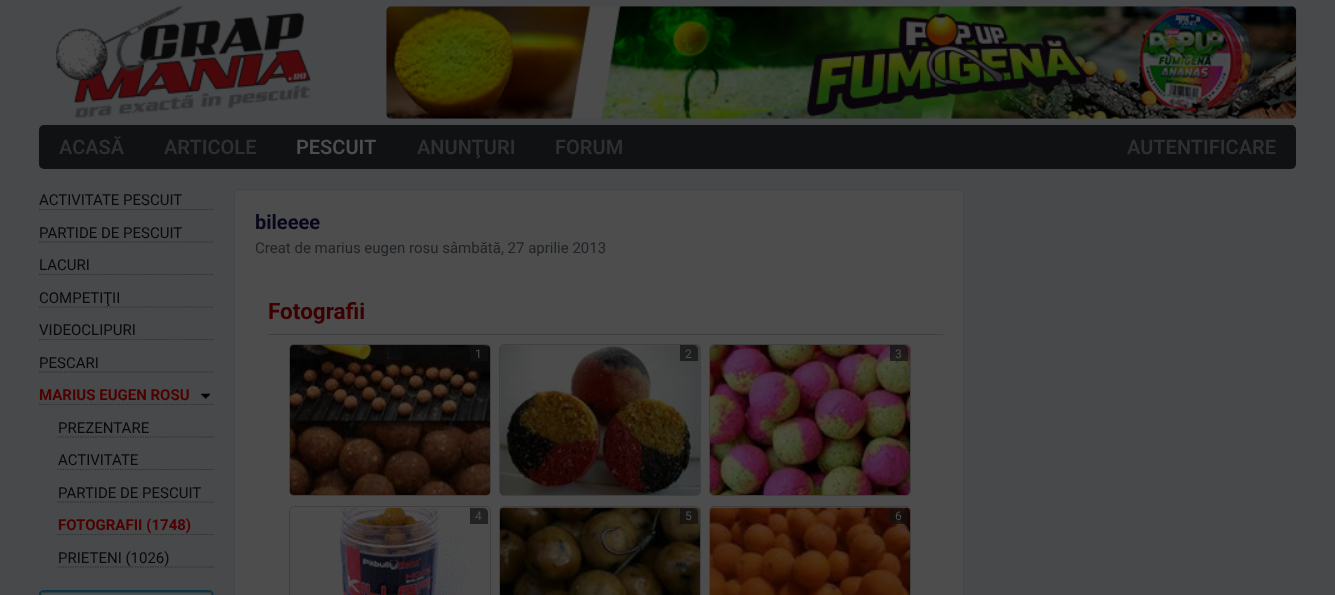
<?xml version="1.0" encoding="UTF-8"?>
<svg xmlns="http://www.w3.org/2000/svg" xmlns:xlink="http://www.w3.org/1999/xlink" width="1335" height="595">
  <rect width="100%" height="100%" fill="#48494a" />
  <image x="56" y="6" width="255" height="112" xlink:href="image1.png" />
  <image x="386" y="6" width="911" height="113" xlink:href="image2.png" />
  <rect x="39" y="125" width="1257" height="44" rx="5" fill="#101113" />
  <path d="M 39 209.5 h 175" fill="none" stroke="#2e2e2e" stroke-width="1.2" stroke-dasharray="1.25 1.25" />
  <path d="M 39 242 h 175" fill="none" stroke="#2e2e2e" stroke-width="1.2" stroke-dasharray="1.25 1.25" />
  <path d="M 39 274.5 h 175" fill="none" stroke="#2e2e2e" stroke-width="1.2" stroke-dasharray="1.25 1.25" />
  <path d="M 39 307 h 175" fill="none" stroke="#2e2e2e" stroke-width="1.2" stroke-dasharray="1.25 1.25" />
  <path d="M 39 339.5 h 175" fill="none" stroke="#2e2e2e" stroke-width="1.2" stroke-dasharray="1.25 1.25" />
  <path d="M 39 372 h 175" fill="none" stroke="#2e2e2e" stroke-width="1.2" stroke-dasharray="1.25 1.25" />
  <image x="201" y="393" width="9" height="6" xlink:href="image3.png" />
  <path d="M 39 404.5 h 175" fill="none" stroke="#2e2e2e" stroke-width="1.2" stroke-dasharray="1.25 1.25" />
  <path d="M 57.5 437 h 156.5" fill="none" stroke="#2e2e2e" stroke-width="1.2" stroke-dasharray="1.25 1.25" />
  <path d="M 57.5 469.5 h 156.5" fill="none" stroke="#2e2e2e" stroke-width="1.2" stroke-dasharray="1.25 1.25" />
  <path d="M 57.5 502 h 156.5" fill="none" stroke="#2e2e2e" stroke-width="1.2" stroke-dasharray="1.25 1.25" />
  <path d="M 57.5 534.5 h 156.5" fill="none" stroke="#2e2e2e" stroke-width="1.2" stroke-dasharray="1.25 1.25" />
  <path d="M 57.5 567 h 156.5" fill="none" stroke="#2e2e2e" stroke-width="1.2" stroke-dasharray="1.25 1.25" />
  <image x="38" y="590" width="176" height="5" xlink:href="image4.png" />
  <rect x="234.5" y="189.5" width="729" height="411" rx="4.5" fill="#4d4d4d" stroke="#434445" />
  <rect x="268" y="334" width="675" height="1" fill="#3f3f3f" />
  <rect x="289.5" y="344.5" width="201" height="151" rx="4.5" fill="none" stroke="#3f3f3f" />
  <image x="290" y="345" width="200" height="150" xlink:href="image5.png" />
  <path d="M 470 345 h 13 c 3 0 5 2 5 5 v 11 h -18 z" fill="#0f0f0f" fill-opacity="0.7" />
  <rect x="499.5" y="344.5" width="201" height="151" rx="4.5" fill="none" stroke="#3f3f3f" />
  <image x="500" y="345" width="200" height="150" xlink:href="image6.png" />
  <path d="M 680 345 h 13 c 3 0 5 2 5 5 v 11 h -18 z" fill="#0f0f0f" fill-opacity="0.7" />
  <rect x="709.5" y="344.5" width="201" height="151" rx="4.5" fill="none" stroke="#3f3f3f" />
  <image x="710" y="345" width="200" height="150" xlink:href="image7.png" />
  <path d="M 890 345 h 13 c 3 0 5 2 5 5 v 11 h -18 z" fill="#0f0f0f" fill-opacity="0.7" />
  <rect x="289.5" y="506.5" width="201" height="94" rx="4.5" fill="none" stroke="#3f3f3f" />
  <image x="290" y="507" width="200" height="88" xlink:href="image8.png" />
  <path d="M 470 508 h 13 c 3 0 5 2 5 5 v 11 h -18 z" fill="#222222" />
  <rect x="499.5" y="506.5" width="201" height="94" rx="4.5" fill="none" stroke="#3f3f3f" />
  <image x="500" y="507" width="200" height="88" xlink:href="image9.png" />
  <path d="M 680 508 h 13 c 3 0 5 2 5 5 v 11 h -18 z" fill="#0f0f0f" fill-opacity="0.7" />
  <rect x="709.5" y="506.5" width="201" height="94" rx="4.5" fill="none" stroke="#3f3f3f" />
  <image x="710" y="507" width="200" height="88" xlink:href="image10.png" />
  <path d="M 890 508 h 13 c 3 0 5 2 5 5 v 11 h -18 z" fill="#0f0f0f" fill-opacity="0.7" />
  <text x="59" y="154" style="font-family: Roboto; font-size: 20px; font-weight: 600; fill: #2e2f30">ACASĂ</text>
  <text x="164" y="154" style="font-family: Roboto; font-size: 20px; font-weight: 600; fill: #2e2f30">ARTICOLE</text>
  <text x="296" y="154" style="font-family: Roboto; font-size: 20px; font-weight: 600; fill: #4d4d4d">PESCUIT</text>
  <text x="417" y="154" style="font-family: Roboto; font-size: 20px; font-weight: 600; fill: #2e2f30">ANUNŢURI</text>
  <text x="555" y="154" style="font-family: Roboto; font-size: 20px; font-weight: 600; fill: #2e2f30">FORUM</text>
  <text x="1127" y="154" style="font-family: Roboto; font-size: 20px; font-weight: 600; fill: #2e2f30">AUTENTIFICARE</text>
  <text x="39" y="205" style="font-family: Roboto; font-size: 15px; fill: #090a0c">ACTIVITATE PESCUIT</text>
  <text x="39" y="238" style="font-family: Roboto; font-size: 15px; fill: #090a0c">PARTIDE DE PESCUIT</text>
  <text x="39" y="270" style="font-family: Roboto; font-size: 15px; fill: #090a0c">LACURI</text>
  <text x="39" y="303" style="font-family: Roboto; font-size: 15px; fill: #090a0c">COMPETIŢII</text>
  <text x="39" y="335" style="font-family: Roboto; font-size: 15px; fill: #090a0c">VIDEOCLIPURI</text>
  <text x="39" y="368" style="font-family: Roboto; font-size: 15px; fill: #090a0c">PESCARI</text>
  <text x="39" y="400" style="font-family: Roboto; font-size: 15px; font-weight: bold; fill: #4d0000">MARIUS EUGEN ROSU</text>
  <text x="58" y="433" style="font-family: Roboto; font-size: 15px; fill: #090a0c">PREZENTARE</text>
  <text x="58" y="465" style="font-family: Roboto; font-size: 15px; fill: #090a0c">ACTIVITATE</text>
  <text x="58" y="498" style="font-family: Roboto; font-size: 15px; fill: #090a0c">PARTIDE DE PESCUIT</text>
  <text x="58" y="530" style="font-family: Roboto; font-size: 15px; font-weight: bold; fill: #4d0000">FOTOGRAFII (1748)</text>
  <text x="58" y="563" style="font-family: Roboto; font-size: 15px; fill: #090a0c">PRIETENI (1026)</text>
  <text x="255" y="229" style="font-family: Roboto; font-size: 20px; font-weight: bold; fill: #060819">bileeee</text>
  <text x="255" y="253" style="font-family: Roboto; font-size: 15px; fill: #202326">Creat de marius eugen rosu sâmbătă, 27 aprilie 2013</text>
  <text x="268" y="319" style="font-family: Roboto; font-size: 22.5px; font-weight: bold; fill: #3d0000">Fotografii</text>
  <text x="475" y="358" style="font-family: Roboto; font-size: 12px; fill: #4d4d4d">1</text>
  <text x="685" y="358" style="font-family: Roboto; font-size: 12px; fill: #4d4d4d">2</text>
  <text x="895" y="358" style="font-family: Roboto; font-size: 12px; fill: #4d4d4d">3</text>
  <text x="475" y="520" style="font-family: Roboto; font-size: 12px; fill: #4d4d4d">4</text>
  <text x="685" y="520" style="font-family: Roboto; font-size: 12px; fill: #4d4d4d">5</text>
  <text x="895" y="520" style="font-family: Roboto; font-size: 12px; fill: #4d4d4d">6</text>
</svg>
